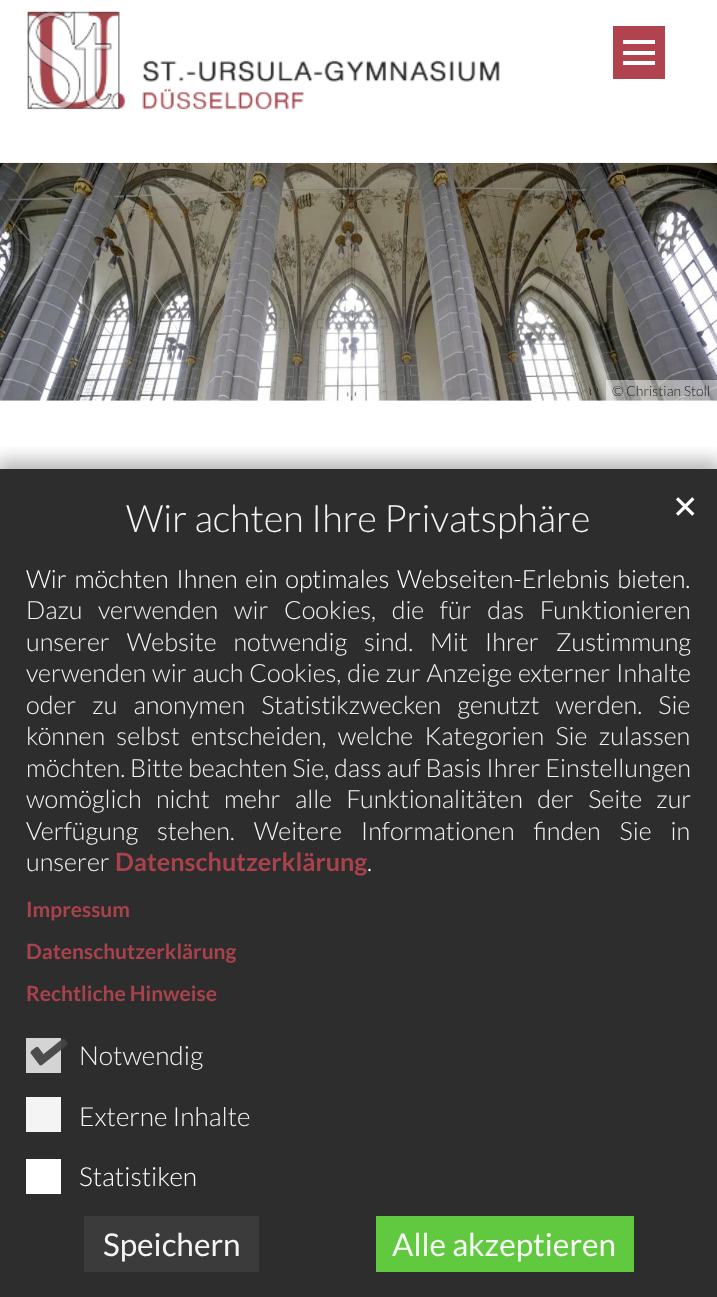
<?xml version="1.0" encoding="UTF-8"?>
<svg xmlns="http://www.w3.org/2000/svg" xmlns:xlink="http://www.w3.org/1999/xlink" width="717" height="1297">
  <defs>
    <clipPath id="clip1"><rect x="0" y="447" width="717" height="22" /></clipPath>
  </defs>
  <rect width="100%" height="100%" fill="#ffffff" />
  <image x="27" y="11" width="473" height="99" xlink:href="image1.png" />
  <rect x="613" y="26" width="52" height="53" fill="#b1434e" />
  <rect x="623" y="51" width="32" height="4" fill="#ffffff" />
  <rect x="623" y="40" width="32" height="4" fill="#ffffff" />
  <rect x="623" y="61" width="32" height="4" fill="#ffffff" />
  <image x="0" y="162" width="717" height="239" xlink:href="image2.png" />
  <rect x="606" y="380" width="111" height="21" fill="#ffffff" fill-opacity="0.48" />
  <g clip-path="url(#clip1)">
    <rect x="-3" y="460" width="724" height="837" fill="#000000" fill-opacity="0.28" filter="blur(9px)" />
  </g>
  <rect y="469" width="717" height="828" fill="#222222" fill-opacity="0.95" />
  <rect x="26" y="1038" width="35" height="35" fill="#dddddd" fill-opacity="0.95" />
  <image x="30" y="1038" width="38" height="28" xlink:href="image3.png" />
  <rect x="26" y="1097" width="35" height="35" fill="#ffffff" fill-opacity="0.95" />
  <rect x="26" y="1159" width="35" height="35" fill="#ffffff" />
  <rect x="84" y="1216" width="175" height="56" fill="#3c3c3c" fill-opacity="0.95" />
  <rect x="376" y="1216" width="258" height="56" fill="#64d241" fill-opacity="0.95" />
  <text x="612" y="396" style="font-family: Lato; font-size: 14px; font-weight: 300; fill: #222222">© Christian Stoll</text>
  <text x="126" y="532" style="font-family: Lato; font-size: 37.75px; font-weight: 300; fill: #f4f4f4">Wir achten Ihre Privatsphäre</text>
  <text x="672" y="518" style="font-family: DejaVu Sans; font-size: 31.5px; fill: #ffffff">✕</text>
  <text x="26" y="588" word-spacing="2.75" style="font-family: Lato; font-size: 25.2px; font-weight: 300; fill: #ffffff">Wir möchten Ihnen ein optimales Webseiten-Erlebnis bieten.</text>
  <text x="26" y="619" word-spacing="10.75" style="font-family: Lato; font-size: 25.2px; font-weight: 300; fill: #f4f4f4">Dazu verwenden wir Cookies, die für das Funktionieren</text>
  <text x="26" y="651" word-spacing="12" style="font-family: Lato; font-size: 25.2px; font-weight: 300; fill: #f4f4f4">unserer Website notwendig sind. Mit Ihrer Zustimmung</text>
  <text x="26" y="682" word-spacing="1" style="font-family: Lato; font-size: 25.2px; font-weight: 300; fill: #f4f4f4">verwenden wir auch Cookies, die zur Anzeige externer Inhalte</text>
  <text x="26" y="714" word-spacing="11.25" style="font-family: Lato; font-size: 25.2px; font-weight: 300; fill: #f4f4f4">oder zu anonymen Statistikzwecken genutzt werden. Sie</text>
  <text x="26" y="745" word-spacing="6.5" style="font-family: Lato; font-size: 25.2px; font-weight: 300; fill: #f4f4f4">können selbst entscheiden, welche Kategorien Sie zulassen</text>
  <text x="26" y="777" style="font-family: Lato; font-size: 25.2px; font-weight: 300; fill: #f4f4f4">möchten. Bitte beachten Sie, dass auf Basis Ihrer Einstellungen</text>
  <text x="26" y="808" word-spacing="9.5" style="font-family: Lato; font-size: 25.2px; font-weight: 300; fill: #f4f4f4">womöglich nicht mehr alle Funktionalitäten der Seite zur</text>
  <text x="26" y="840" word-spacing="14" style="font-family: Lato; font-size: 25.2px; font-weight: 300; fill: #f4f4f4">Verfügung stehen. Weitere Informationen finden Sie in</text>
  <text x="26" y="871" style="font-family: Lato; font-size: 25.2px; font-weight: 300; fill: #f4f4f4">unserer</text>
  <text x="115" y="871" style="font-family: Lato; font-size: 25.2px; font-weight: bold; fill: #aa424c">Datenschutzerklärung</text>
  <text x="367" y="871" style="font-family: Lato; font-size: 25.2px; font-weight: 300; fill: #ffffff">.</text>
  <text x="26" y="917" style="font-family: Lato; font-size: 21px; font-weight: bold; fill: #aa424c">Impressum</text>
  <text x="26" y="959" style="font-family: Lato; font-size: 21px; font-weight: bold; fill: #aa424c">Datenschutzerklärung</text>
  <text x="26" y="1001" style="font-family: Lato; font-size: 21px; font-weight: bold; fill: #aa424c">Rechtliche Hinweise</text>
  <text x="79" y="1065" style="font-family: Lato; font-size: 26.25px; font-weight: 300; fill: #f4f4f4">Notwendig</text>
  <text x="79" y="1126" style="font-family: Lato; font-size: 26.25px; font-weight: 300; fill: #f4f4f4">Externe Inhalte</text>
  <text x="79" y="1186" style="font-family: Lato; font-size: 26.25px; font-weight: 300; fill: #ffffff">Statistiken</text>
  <text x="103" y="1256" style="font-family: Lato; font-size: 31.5px; fill: #f4f4f4">Speichern</text>
  <text x="392" y="1256" style="font-family: Lato; font-size: 31.5px; fill: #f7fcf5">Alle akzeptieren</text>
</svg>
